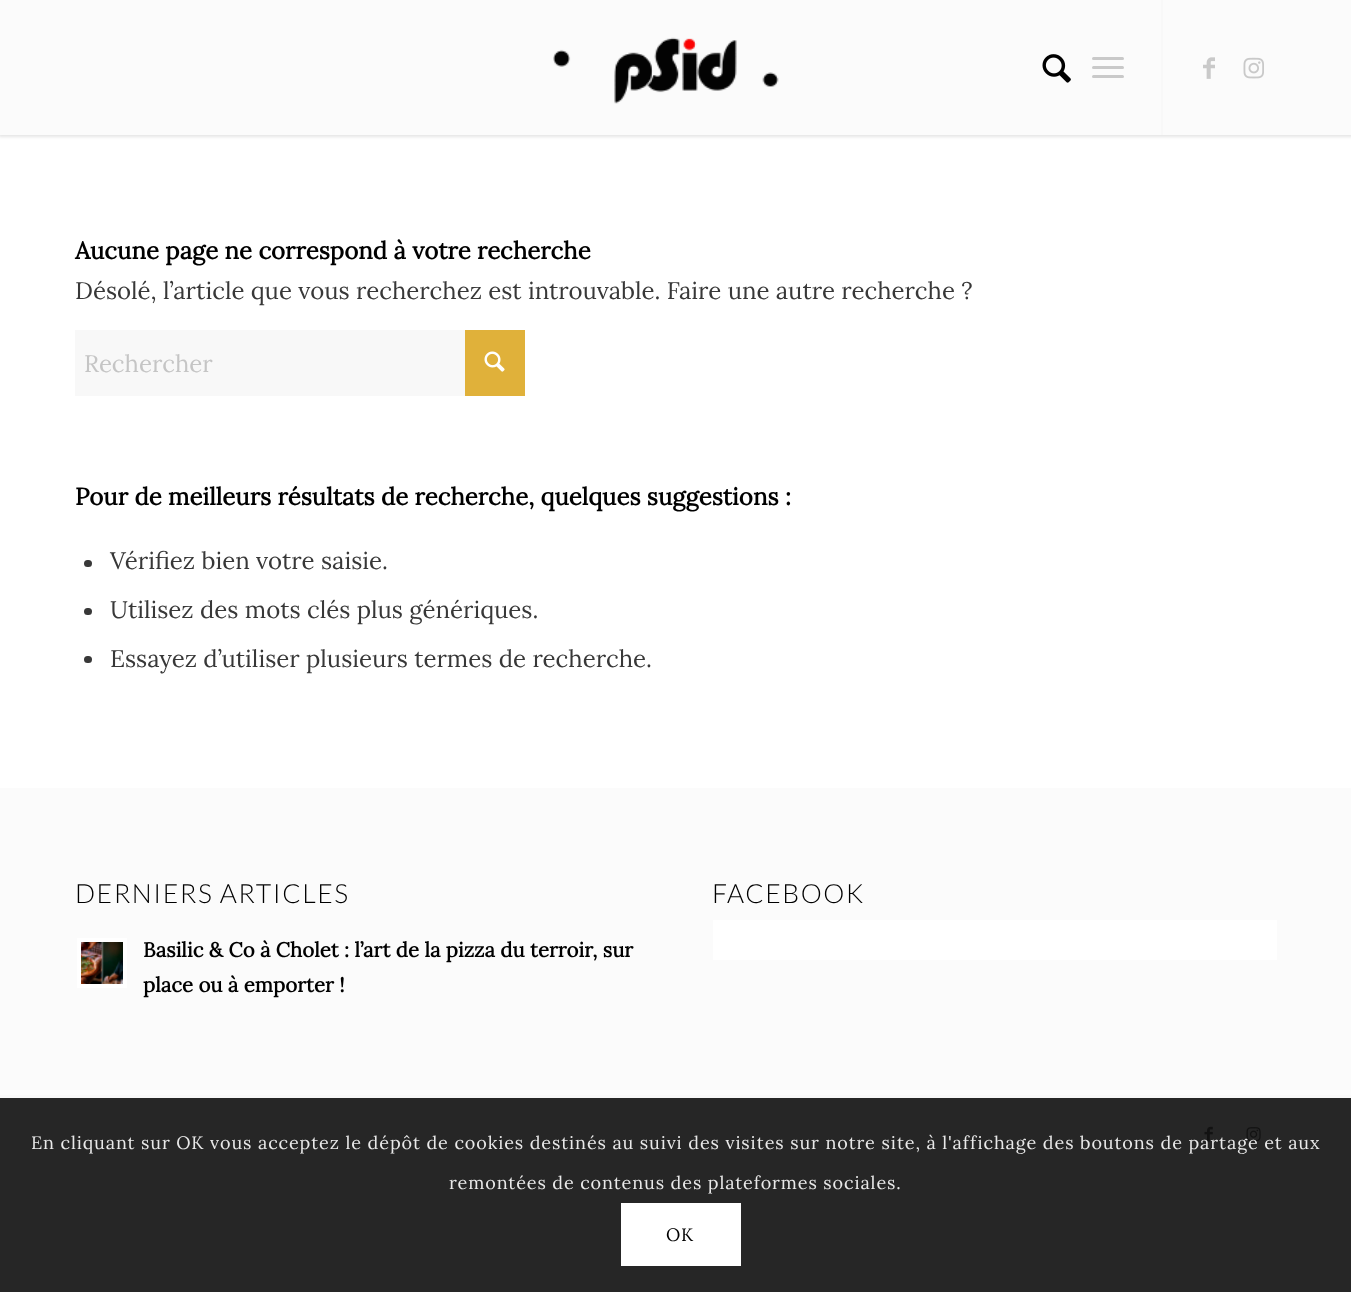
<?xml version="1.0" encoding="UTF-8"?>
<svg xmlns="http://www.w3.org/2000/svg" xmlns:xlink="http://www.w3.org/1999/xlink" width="1351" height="1292">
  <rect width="100%" height="100%" fill="#262626" />
  <rect y="135" width="1351" height="653" fill="#ffffff" />
  <rect x="-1" y="-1" width="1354" height="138" fill="#000000" fill-opacity="0.1" filter="blur(1.5px)" />
  <rect width="1351" height="135" fill="#fbfbfb" />
  <image x="553" y="37" width="226" height="67" xlink:href="image1.png" />
  <rect x="1161" width="2" height="135" fill="#f8f8f8" />
  <image x="1042" y="54" width="29" height="29" xlink:href="image2.png" />
  <rect x="1092" y="66" width="32" height="3" rx="1.5" fill="#c9c9c9" />
  <rect x="1092" y="57" width="32" height="3" rx="1.5" fill="#c9c9c9" />
  <rect x="1092" y="75" width="32" height="3" rx="1.5" fill="#c9c9c9" />
  <image x="1203" y="57" width="12" height="22" xlink:href="image3.png" />
  <image x="1243" y="57" width="21" height="22" xlink:href="image4.png" />
  <rect y="788" width="1351" height="307" fill="#fbfbfb" />
  <rect x="75" y="330" width="390" height="66" fill="#f8f8f8" />
  <rect x="465" y="330" width="60" height="66" fill="#e0b13a" />
  <image x="484" y="351" width="21" height="21" xlink:href="image5.png" />
  <rect x="84" y="560" width="8" height="7" rx="3.5" fill="#383838" />
  <rect x="84" y="608" width="8" height="7" rx="3.5" fill="#383838" />
  <rect x="84" y="656" width="8" height="7" rx="3.5" fill="#383838" />
  <rect x="77" y="938" width="50" height="50" fill="#ffffff" />
  <image x="81" y="942" width="42" height="42" xlink:href="image6.png" />
  <rect x="713" y="920" width="564" height="40" fill="#ffffff" />
  <rect y="1095" width="1351" height="3" fill="#f8f8f8" />
  <image x="1204" y="1126" width="9" height="16" xlink:href="image7.png" />
  <image x="1246" y="1127" width="15" height="15" xlink:href="image8.png" />
  <rect x="621" y="1203" width="120" height="63" fill="#ffffff" />
  <text x="75" y="259" style="font-family: Lora; font-size: 24px; font-weight: bold; fill: #000000">Aucune page ne correspond à votre recherche</text>
  <text x="75" y="299" style="font-family: Lora; font-size: 24px; fill: #383838">Désolé, l’article que vous recherchez est introuvable. Faire une autre recherche ?</text>
  <text x="84" y="372" style="font-family: Lora; font-size: 24px; fill: #c5c5c5">Rechercher</text>
  <text x="75" y="505" style="font-family: Lora; font-size: 24px; font-weight: bold; fill: #000000">Pour de meilleurs résultats de recherche, quelques suggestions :</text>
  <text x="110" y="569" style="font-family: Lora; font-size: 24px; fill: #383838">Vérifiez bien votre saisie.</text>
  <text x="110" y="618" style="font-family: Lora; font-size: 24px; fill: #383838">Utilisez des mots clés plus génériques.</text>
  <text x="110" y="667" style="font-family: Lora; font-size: 24px; fill: #383838">Essayez d’utiliser plusieurs termes de recherche.</text>
  <text x="75" y="903" style="font-family: Lato; font-size: 26.4px; font-weight: 300; letter-spacing: 1.5px; fill: #000000">DERNIERS ARTICLES</text>
  <text x="143" y="957" style="font-family: Lora; font-size: 20.4px; font-weight: bold; fill: #000000">Basilic &amp; Co à Cholet : l’art de la pizza du terroir, sur</text>
  <text x="143" y="992" style="font-family: Lora; font-size: 20.4px; font-weight: bold; fill: #000000">place ou à emporter !</text>
  <text x="712" y="903" style="font-family: Lato; font-size: 26.4px; font-weight: 300; letter-spacing: 1.5px; fill: #000000">FACEBOOK</text>
  <text x="31" y="1149" style="font-family: Lora; font-size: 18px; letter-spacing: 0.9px; fill: #e9e9e9">En cliquant sur OK vous acceptez le dépôt de cookies destinés au suivi des visites sur notre site, à l'affichage des boutons de partage et aux</text>
  <text x="449" y="1189" style="font-family: Lora; font-size: 18px; letter-spacing: 0.9px; fill: #e9e9e9">remontées de contenus des plateformes sociales.</text>
  <text x="666" y="1241" style="font-family: Lora; font-size: 18px; letter-spacing: 0.9px; fill: #000000">OK</text>
</svg>
